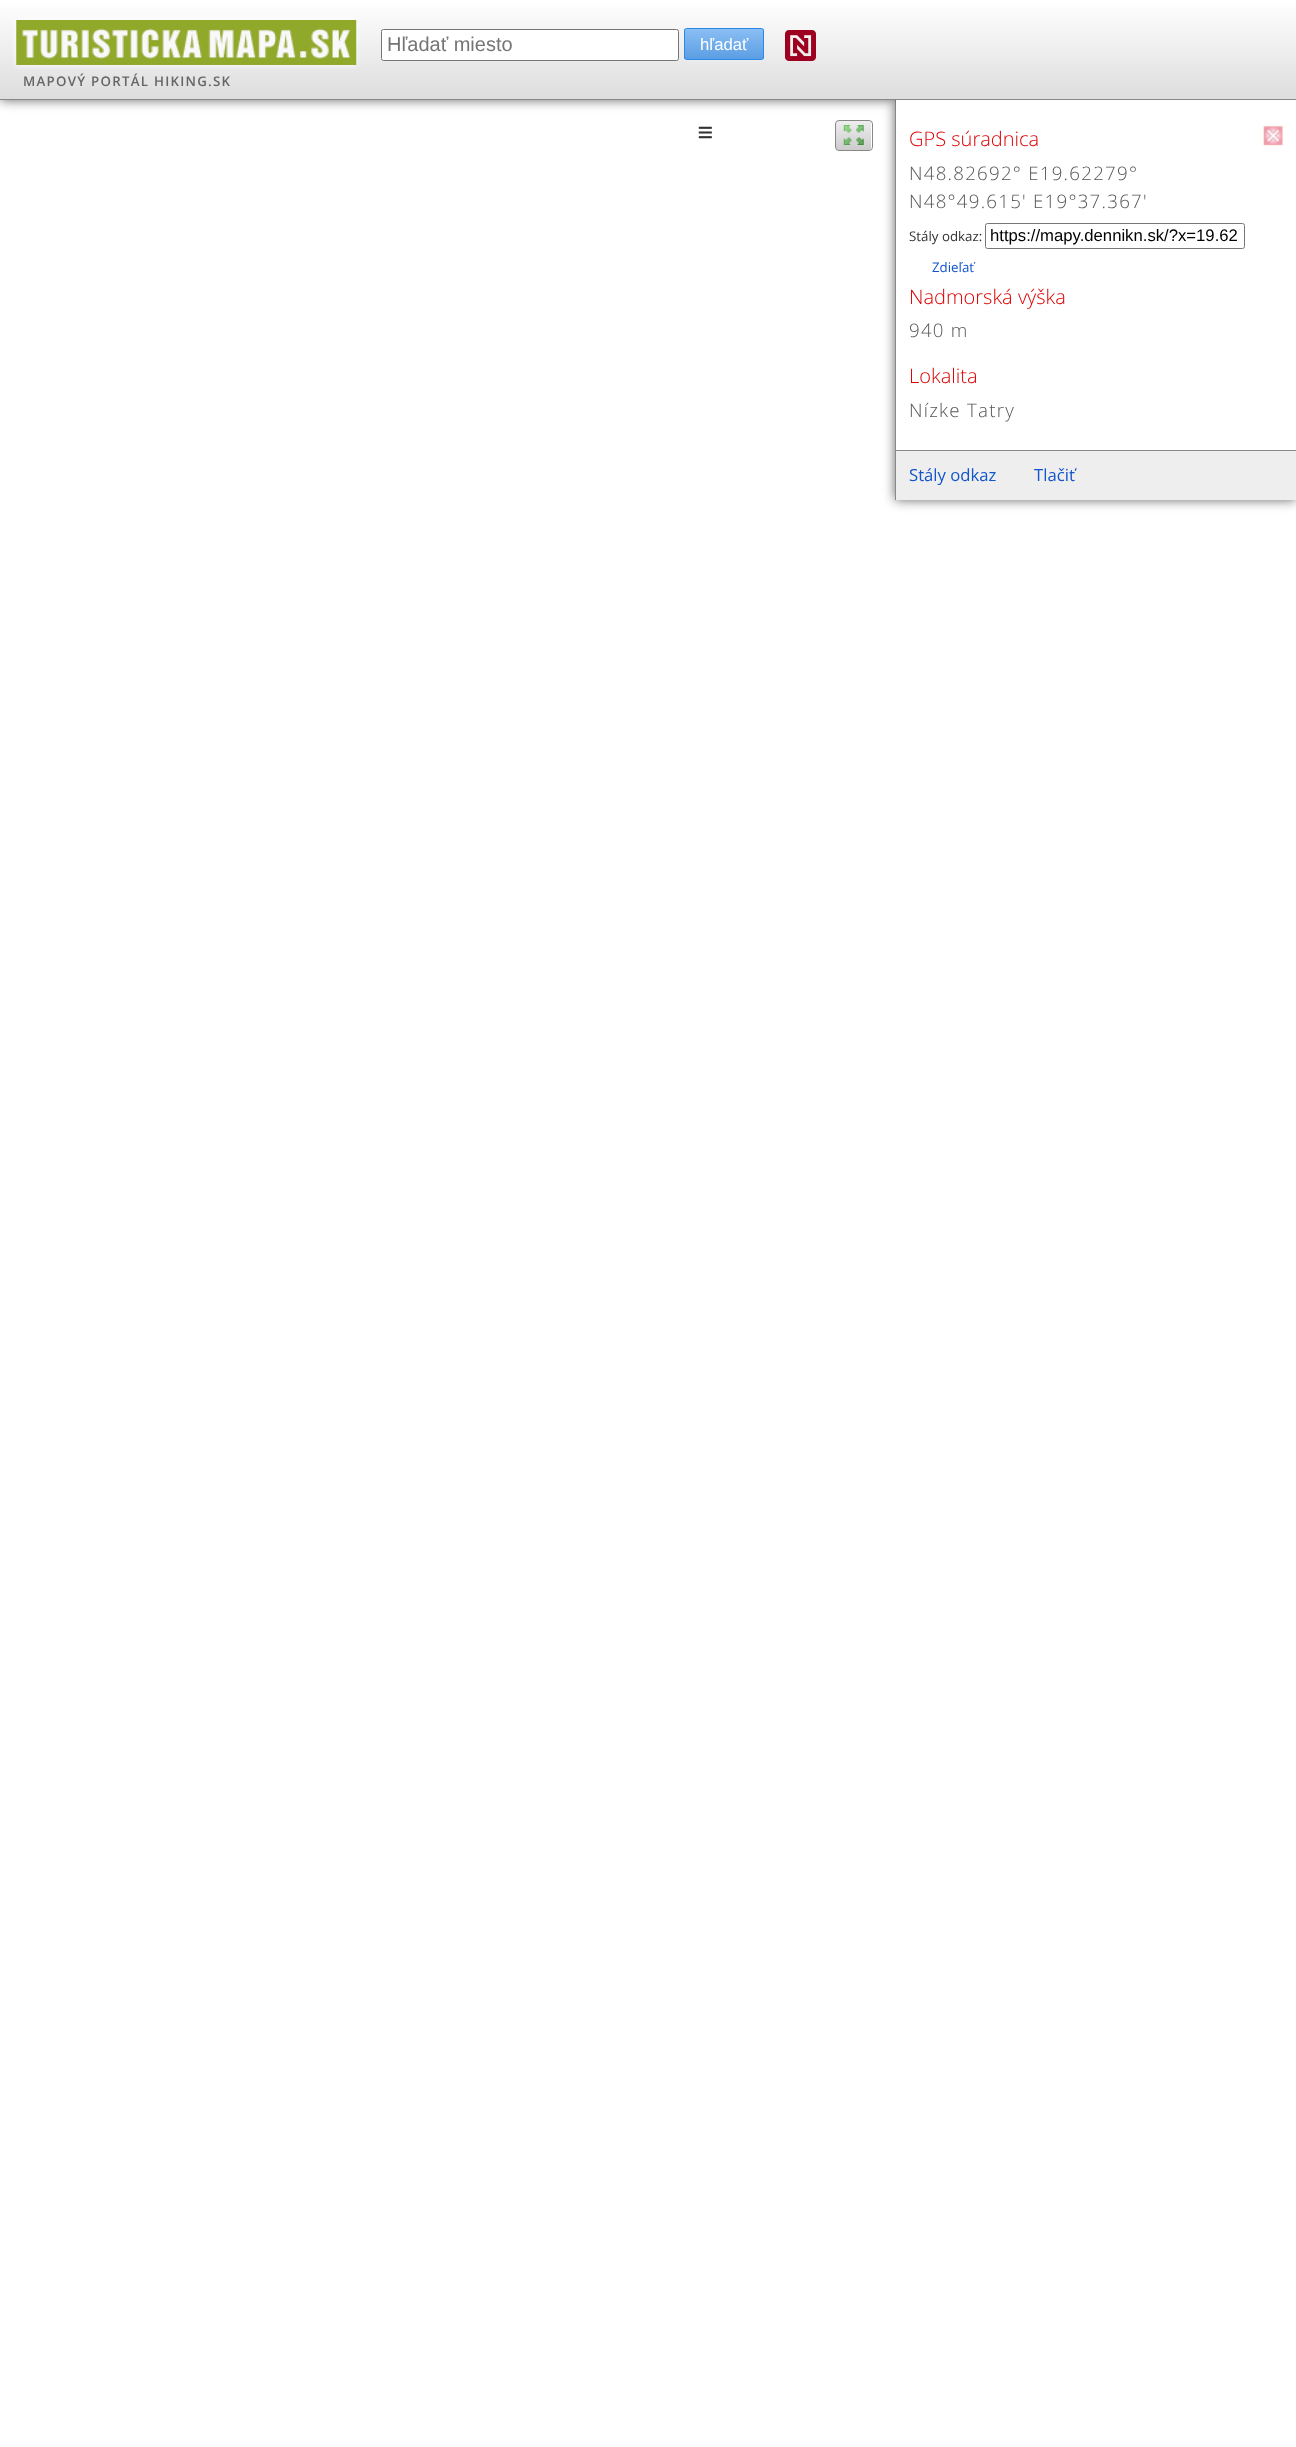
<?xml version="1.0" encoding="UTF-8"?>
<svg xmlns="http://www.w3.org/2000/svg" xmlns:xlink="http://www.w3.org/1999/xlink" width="1296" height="2447">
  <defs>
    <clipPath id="clip1"><path d="M 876 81 h 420 v 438 h -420 z m 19 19 h 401 v 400 h -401 z" clip-rule="evenodd" /></clipPath>
    <linearGradient id="g1" gradientUnits="userSpaceOnUse" x1="0" y1="0" x2="0" y2="99"><stop offset="0" stop-color="#ffffff" /><stop offset="1" stop-color="#dddddd" /></linearGradient>
    <clipPath id="clip2"><rect x="684" y="28" width="80" height="32" rx="2.5" /></clipPath>
    <linearGradient id="g2" gradientUnits="userSpaceOnUse" x1="685" y1="29" x2="685" y2="59"><stop offset="0" stop-color="#8abef4" /><stop offset="1" stop-color="#5b9ee3" /></linearGradient>
    <linearGradient id="g3" gradientUnits="userSpaceOnUse" x1="836" y1="121" x2="836" y2="150"><stop offset="0" stop-color="#eeeeee" /><stop offset="1" stop-color="#cccccc" /></linearGradient>
  </defs>
  <rect width="100%" height="100%" fill="#ffffff" />
  <g clip-path="url(#clip1)">
    <rect x="895" y="100" width="401" height="400" fill="#666666" filter="blur(6px)" />
  </g>
  <rect x="895" y="100" width="1" height="400" fill="#888888" />
  <rect width="1296" height="100" fill="#666666" filter="blur(6px)" />
  <rect width="1296" height="99" fill="url(#g1)" />
  <rect y="99" width="1296" height="1" fill="#888888" />
  <rect x="381.5" y="29.5" width="297" height="31" rx="2" fill="#ffffff" stroke="#767676" />
  <g clip-path="url(#clip2)">
    <rect x="684" y="29" width="80" height="30" fill="url(#g2)" />
  </g>
  <rect x="684.5" y="28.5" width="79" height="31" rx="2" fill="none" stroke="#2a89e8" />
  <image x="785" y="30" width="31" height="31" xlink:href="image1.png" />
  <rect x="16" y="20" width="340" height="45" fill="#ffffff" filter="blur(3px)" />
  <image x="16" y="20" width="341" height="45" xlink:href="image2.png" />
  <rect x="896" y="100" width="400" height="13" fill="#ffffff" />
  <image x="698" y="126" width="14" height="13" xlink:href="image3.png" />
  <rect x="836" y="121" width="35" height="29" rx="2.5" fill="url(#g3)" />
  <image x="843" y="125" width="21" height="20" xlink:href="image4.png" />
  <rect x="835.5" y="120.5" width="37" height="30" rx="3.5" fill="none" stroke="#888888" />
  <rect x="985.5" y="223.5" width="259" height="25" rx="2" fill="none" stroke="#767676" />
  <image x="1262" y="125" width="22" height="21" xlink:href="image5.png" />
  <rect x="896" y="451" width="400" height="49" fill="#eeeeee" />
  <rect x="896" y="450" width="400" height="1" fill="#888888" />
  <text x="387" y="51" style="font-family: Liberation Sans; font-size: 20px; fill: #757575">Hľadať miesto</text>
  <text x="700" y="50" style="font-family: Liberation Sans; font-size: 16.7px; fill: #ffffff">hľadať</text>
  <text x="23" y="86" style="font-family: Open Sans; font-size: 13.3px; font-weight: 600; letter-spacing: 1.25px; fill: #666666">MAPOVÝ PORTÁL HIKING.SK</text>
  <text x="909" y="146" style="font-family: Open Sans; font-size: 20px; font-weight: 300; fill: #dd0000">GPS súradnica</text>
  <text x="909" y="180" style="font-family: Open Sans; font-size: 18.7px; font-weight: 300; letter-spacing: 1.25px; fill: #555555">N48.82692° E19.62279°</text>
  <text x="909" y="208" style="font-family: Open Sans; font-size: 18.7px; font-weight: 300; letter-spacing: 1.25px; fill: #555555">N48°49.615' E19°37.367'</text>
  <text x="909" y="241" style="font-family: Open Sans; font-size: 13.3px; fill: #333333">Stály odkaz:</text>
  <text x="990" y="241" style="font-family: Liberation Sans; font-size: 16.7px; fill: #000000">https://mapy.dennikn.sk/?x=19.62</text>
  <text x="932" y="272" style="font-family: Open Sans; font-size: 13.3px; fill: #1155cc">Zdieľať</text>
  <text x="909" y="304" style="font-family: Open Sans; font-size: 20px; font-weight: 300; fill: #dd0000">Nadmorská výška</text>
  <text x="909" y="337" style="font-family: Open Sans; font-size: 18.7px; font-weight: 300; letter-spacing: 1.25px; fill: #555555">940 m</text>
  <text x="909" y="383" style="font-family: Open Sans; font-size: 20px; font-weight: 300; fill: #dd0000">Lokalita</text>
  <text x="909" y="417" style="font-family: Open Sans; font-size: 18.7px; font-weight: 300; letter-spacing: 1.25px; fill: #555555">Nízke Tatry</text>
  <text x="909" y="481" style="font-family: Open Sans; font-size: 16.7px; fill: #1155cc">Stály odkaz</text>
  <text x="1034" y="481" style="font-family: Open Sans; font-size: 16.7px; fill: #1155cc">Tlačiť</text>
</svg>
